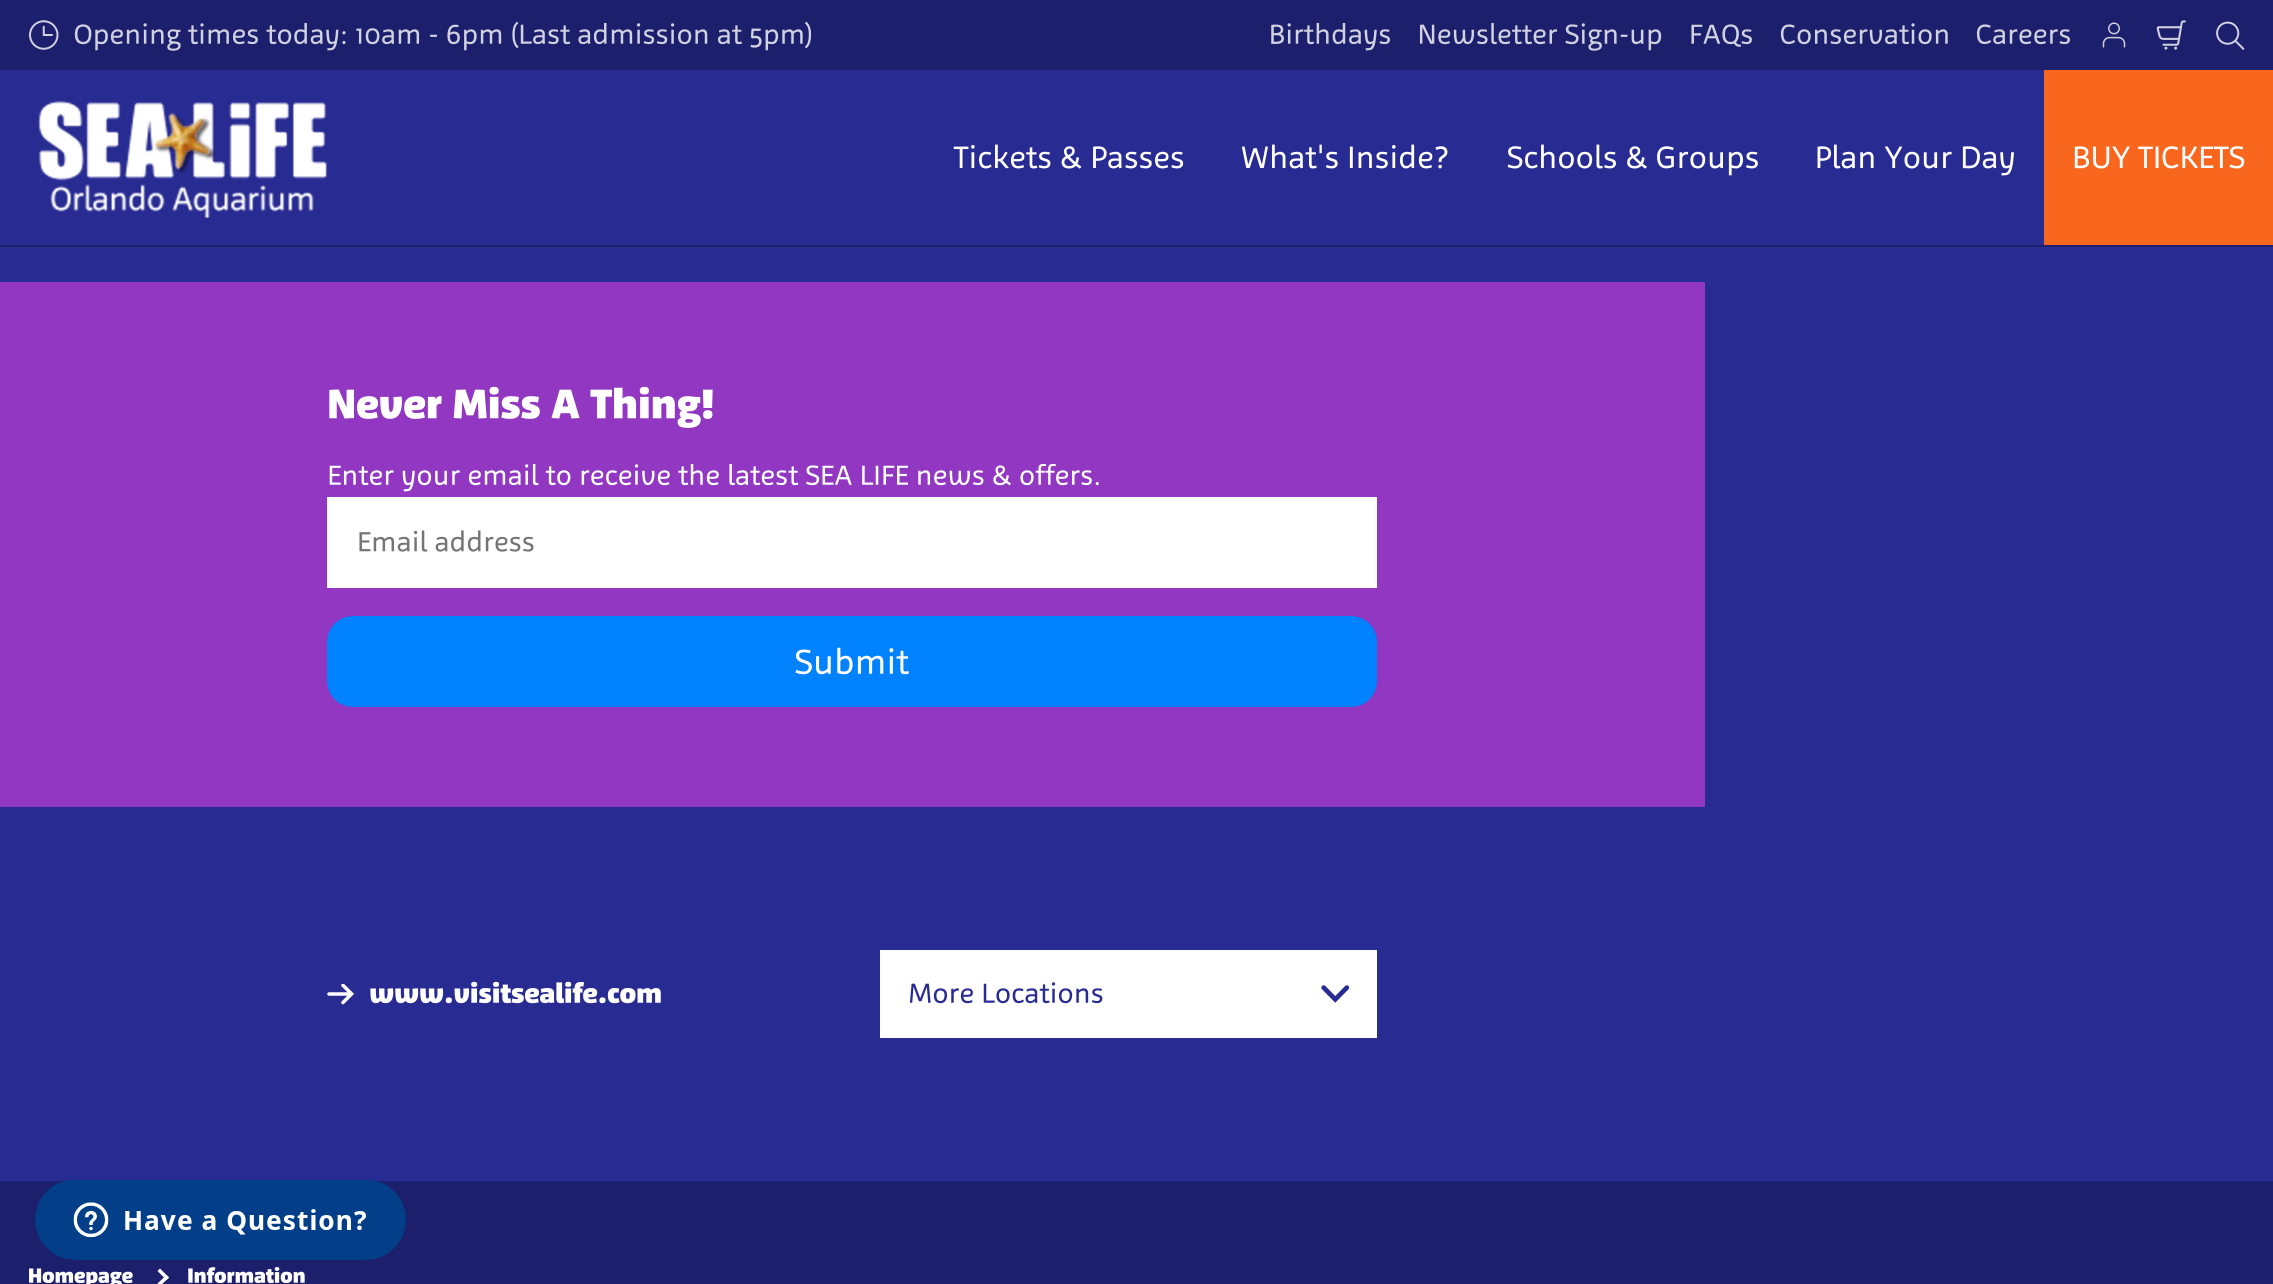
<?xml version="1.0" encoding="UTF-8"?>
<svg xmlns="http://www.w3.org/2000/svg" xmlns:xlink="http://www.w3.org/1999/xlink" width="2273" height="1284">
  <rect width="100%" height="100%" fill="#282b91" />
  <rect width="2273" height="70" fill="#1c1f6b" />
  <image x="29" y="20" width="30" height="30" xlink:href="image1.png" />
  <image x="74" y="21" width="738" height="30" xlink:href="image2.png" />
  <image x="1271" y="22" width="119" height="29" xlink:href="image3.png" />
  <image x="1419" y="22" width="243" height="29" xlink:href="image4.png" />
  <image x="1691" y="24" width="61" height="23" xlink:href="image5.png" />
  <image x="1780" y="23" width="168" height="22" xlink:href="image6.png" />
  <image x="1976" y="24" width="94" height="21" xlink:href="image7.png" />
  <image x="2102" y="22" width="24" height="26" xlink:href="image8.png" />
  <image x="2156" y="20" width="30" height="30" xlink:href="image9.png" />
  <image x="2216" y="21" width="29" height="29" xlink:href="image10.png" />
  <rect y="245" width="2273" height="2" fill="#1c1f6b" />
  <image x="38" y="100" width="290" height="119" xlink:href="image11.png" />
  <image x="953" y="144" width="231" height="25" xlink:href="image12.png" />
  <image x="1241" y="144" width="207" height="25" xlink:href="image13.png" />
  <image x="1507" y="144" width="251" height="32" xlink:href="image14.png" />
  <image x="1817" y="144" width="197" height="32" xlink:href="image15.png" />
  <rect x="2044" y="70" width="229" height="175" fill="#f9661e" />
  <image x="2074" y="146" width="171" height="23" xlink:href="image16.png" />
  <rect y="282" width="1705" height="525" fill="#9137c1" />
  <image x="329" y="386" width="384" height="42" xlink:href="image17.png" />
  <image x="329" y="463" width="770" height="29" xlink:href="image18.png" />
  <rect x="327" y="497" width="1050" height="91" fill="#ffffff" />
  <image x="359" y="530" width="175" height="22" xlink:href="image19.png" />
  <rect x="327" y="616" width="1050" height="91" rx="26" fill="#0082ff" />
  <image x="795" y="647" width="114" height="28" xlink:href="image20.png" />
  <image x="327" y="984" width="27" height="21" xlink:href="image21.png" />
  <image x="370" y="981" width="291" height="23" xlink:href="image22.png" />
  <rect x="880" y="950" width="497" height="88" fill="#ffffff" />
  <image x="909" y="982" width="194" height="22" xlink:href="image23.png" />
  <image x="1321" y="985" width="28" height="18" xlink:href="image24.png" />
  <rect y="1181" width="2273" height="103" fill="#1c1f6b" />
  <image x="29" y="1268" width="104" height="16" xlink:href="image25.png" />
  <path d="M 160 1268.5 l 9 9 l -2.5 2.5 l -9 -9 z" fill="#ffffff" />
  <path d="M 166.5 1275 l 2.5 2.5 l -9 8.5 l -2.5 -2.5 z" fill="#ffffff" />
  <image x="188" y="1267" width="117" height="17" xlink:href="image26.png" />
  <image x="35" y="1179" width="371" height="81" xlink:href="image27.png" />
</svg>
